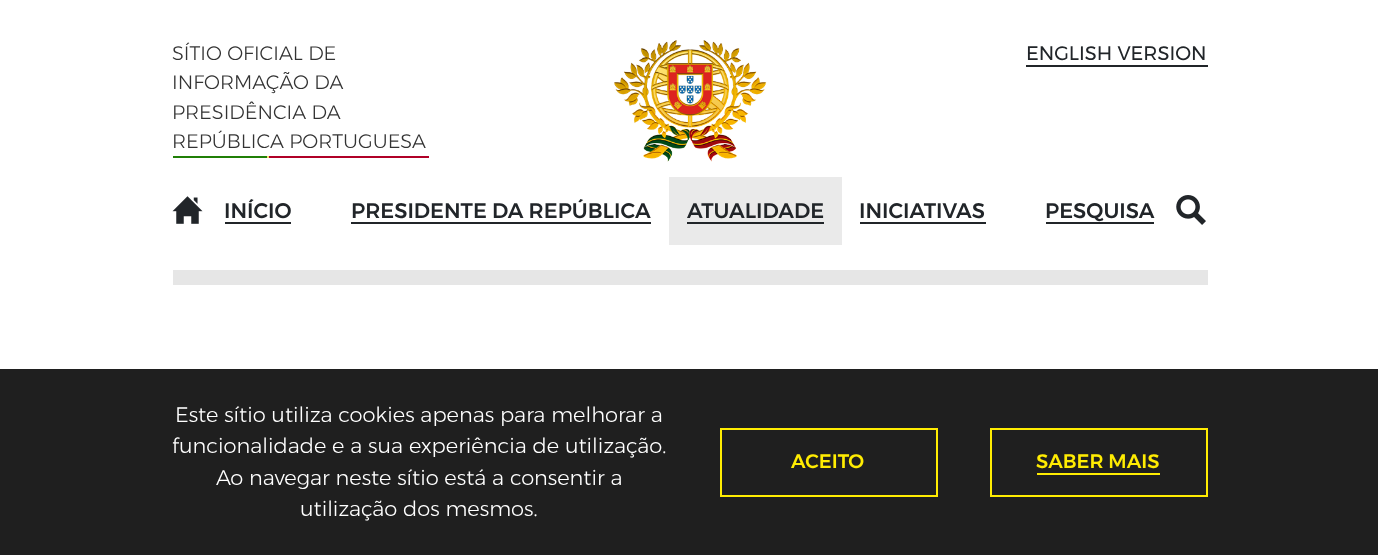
<?xml version="1.0" encoding="UTF-8"?>
<svg xmlns="http://www.w3.org/2000/svg" xmlns:xlink="http://www.w3.org/1999/xlink" width="1378" height="555">
  <rect width="100%" height="100%" fill="#ffffff" />
  <rect x="267" y="156" width="2" height="2" fill="#f5e16c" />
  <rect x="173" y="156" width="94" height="2" fill="#207f07" />
  <rect x="269" y="156" width="160" height="2" fill="#b00027" />
  <image x="614" y="40" width="153" height="122" xlink:href="image1.png" />
  <rect x="1026" y="65" width="182" height="2" fill="#212529" />
  <image x="172" y="196" width="31" height="28" xlink:href="image2.png" />
  <rect x="225" y="222" width="66" height="2" fill="#212529" />
  <rect x="351" y="222" width="300" height="2" fill="#212529" />
  <rect x="669" y="177" width="173" height="68" fill="#eaeaea" />
  <rect x="687" y="222" width="137" height="2" fill="#212529" />
  <rect x="860" y="222" width="126" height="2" fill="#212529" />
  <rect x="1046" y="222" width="108" height="2" fill="#212529" />
  <image x="1176" y="195" width="30" height="30" xlink:href="image3.png" />
  <rect y="369" width="1378" height="186" fill="#1f1f1f" />
  <rect x="721" y="429" width="216" height="67" fill="none" stroke="#ffec02" stroke-width="2" />
  <rect x="991" y="429" width="216" height="67" fill="none" stroke="#ffec02" stroke-width="2" />
  <rect x="1037" y="473" width="123" height="2" fill="#ffec02" />
  <rect x="173" y="270" width="1035" height="15" fill="#e6e6e6" />
  <text x="172" y="60" style="font-family: Montserrat; font-size: 19.5px; font-weight: 300; fill: #333333">SÍTIO OFICIAL DE</text>
  <text x="172" y="89" style="font-family: Montserrat; font-size: 19.5px; font-weight: 300; fill: #333333">INFORMAÇÃO DA</text>
  <text x="172" y="119" style="font-family: Montserrat; font-size: 19.5px; font-weight: 300; fill: #333333">PRESIDÊNCIA DA</text>
  <text x="172" y="148" style="font-family: Montserrat; font-size: 19.5px; font-weight: 300; fill: #333333">REPÚBLICA PORTUGUESA</text>
  <text x="1026" y="60" style="font-family: Montserrat; font-size: 19.5px; fill: #212529">ENGLISH VERSION</text>
  <text x="224" y="218" style="font-family: Montserrat; font-size: 21px; font-weight: 500; fill: #212529">INÍCIO</text>
  <text x="351" y="218" style="font-family: Montserrat; font-size: 21px; font-weight: 500; fill: #212529">PRESIDENTE DA REPÚBLICA</text>
  <text x="687" y="218" style="font-family: Montserrat; font-size: 21px; font-weight: 500; fill: #212529">ATUALIDADE</text>
  <text x="859" y="218" style="font-family: Montserrat; font-size: 21px; font-weight: 500; fill: #212529">INICIATIVAS</text>
  <text x="1045" y="218" style="font-family: Montserrat; font-size: 21px; font-weight: 500; fill: #212529">PESQUISA</text>
  <text x="175" y="422" style="font-family: Montserrat; font-size: 21px; font-weight: 300; fill: #ffffff">Este sítio utiliza cookies apenas para melhorar a</text>
  <text x="172" y="453" style="font-family: Montserrat; font-size: 21px; font-weight: 300; fill: #ffffff">funcionalidade e a sua experiência de utilização.</text>
  <text x="216" y="485" style="font-family: Montserrat; font-size: 21px; font-weight: 300; fill: #ffffff">Ao navegar neste sítio está a consentir a</text>
  <text x="300" y="516" style="font-family: Montserrat; font-size: 21px; font-weight: 300; fill: #ffffff">utilização dos mesmos.</text>
  <text x="791" y="468" style="font-family: Montserrat; font-size: 19.5px; font-weight: 500; fill: #ffec02">ACEITO</text>
  <text x="1036" y="468" style="font-family: Montserrat; font-size: 19.5px; font-weight: 500; fill: #ffec02">SABER MAIS</text>
</svg>
